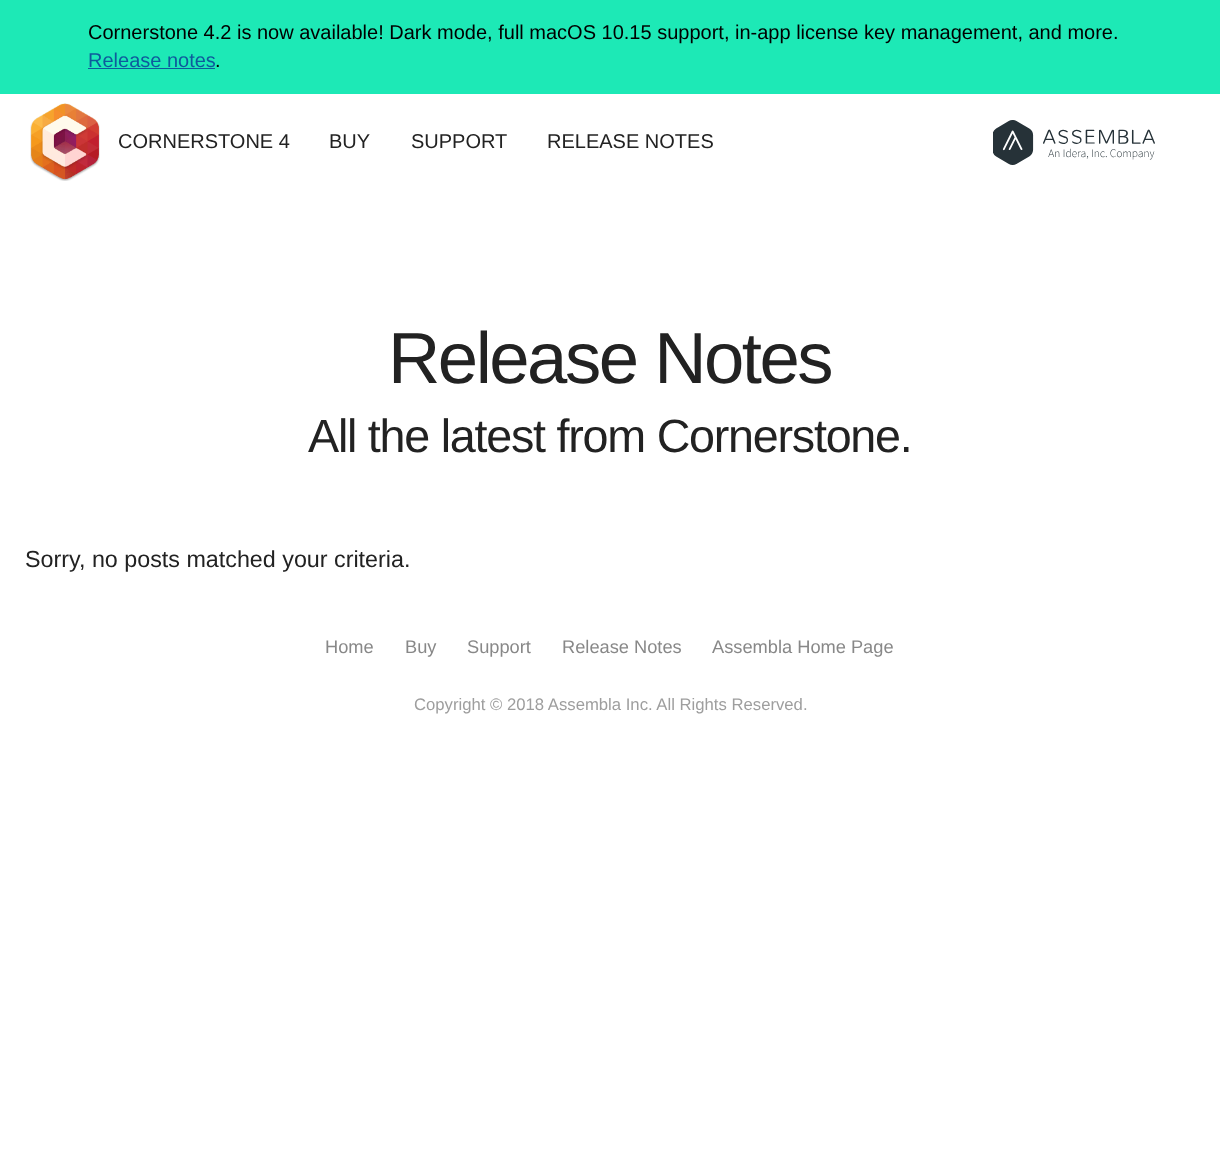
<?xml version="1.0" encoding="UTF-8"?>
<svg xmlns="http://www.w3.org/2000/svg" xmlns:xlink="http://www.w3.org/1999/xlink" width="1220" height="1162">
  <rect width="100%" height="100%" fill="#ffffff" />
  <rect width="1220" height="94" fill="#1de9b6" />
  <rect x="88" y="68" width="127" height="1" fill="#0e5a9c" />
  <image x="30" y="103" width="70" height="78" xlink:href="image1.png" />
  <image x="993" y="120" width="162" height="45" xlink:href="image2.png" />
  <text x="88" y="39" style="font-family: Liberation Sans; font-size: 20px; fill: #000000">Cornerstone 4.2 is now available! Dark mode, full macOS 10.15 support, in-app license key management, and more.</text>
  <text x="88" y="67" style="font-family: Liberation Sans; font-size: 20px; fill: #0e5a9c">Release notes</text>
  <text x="215" y="67" style="font-family: Liberation Sans; font-size: 20px; fill: #000000">.</text>
  <text x="118" y="148" style="font-family: Liberation Sans; font-size: 20px; fill: #222222">CORNERSTONE 4</text>
  <text x="329" y="148" style="font-family: Liberation Sans; font-size: 20px; fill: #222222">BUY</text>
  <text x="411" y="148" style="font-family: Liberation Sans; font-size: 20px; fill: #222222">SUPPORT</text>
  <text x="547" y="148" style="font-family: Liberation Sans; font-size: 20px; fill: #222222">RELEASE NOTES</text>
  <text x="388" y="383" style="font-family: Liberation Sans; font-size: 72.5px; letter-spacing: -2.5px; fill: #222222">Release Notes</text>
  <text x="308" y="452" style="font-family: Liberation Sans; font-size: 46.7px; letter-spacing: -1.25px; fill: #222222">All the latest from Cornerstone.</text>
  <text x="25" y="567" style="font-family: Liberation Sans; font-size: 23.3px; fill: #222222">Sorry, no posts matched your criteria.</text>
  <text x="325" y="653" style="font-family: Liberation Sans; font-size: 18.25px; fill: #888888">Home</text>
  <text x="405" y="653" style="font-family: Liberation Sans; font-size: 18.25px; fill: #888888">Buy</text>
  <text x="467" y="653" style="font-family: Liberation Sans; font-size: 18.25px; fill: #888888">Support</text>
  <text x="562" y="653" style="font-family: Liberation Sans; font-size: 18.25px; fill: #888888">Release Notes</text>
  <text x="712" y="653" style="font-family: Liberation Sans; font-size: 18.25px; fill: #888888">Assembla Home Page</text>
  <text x="414" y="710" style="font-family: Liberation Sans; font-size: 16.7px; fill: #9e9e9e">Copyright © 2018 Assembla Inc. All Rights Reserved.</text>
</svg>
